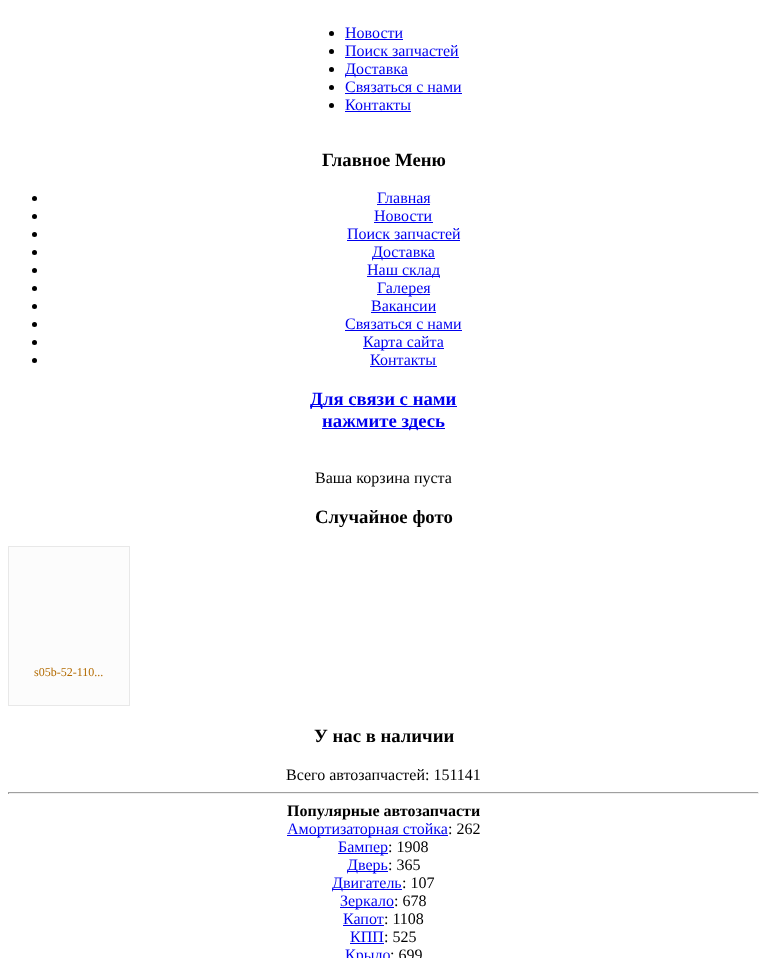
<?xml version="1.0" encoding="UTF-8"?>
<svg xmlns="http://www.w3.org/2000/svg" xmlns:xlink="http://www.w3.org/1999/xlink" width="767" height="958">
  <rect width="100%" height="100%" fill="#ffffff" />
  <circle cx="331.5" cy="33.5" r="2.5" fill="#000000" />
  <rect x="345" y="39" width="58" height="1" fill="#0000ee" />
  <circle cx="331.5" cy="51.5" r="2.5" fill="#000000" />
  <rect x="345" y="57" width="114" height="1" fill="#0000ee" />
  <circle cx="331.5" cy="69.5" r="2.5" fill="#000000" />
  <rect x="345" y="75" width="63" height="1" fill="#0000ee" />
  <circle cx="331.5" cy="87.5" r="2.5" fill="#000000" />
  <rect x="345" y="93" width="117" height="1" fill="#0000ee" />
  <circle cx="331.5" cy="105.5" r="2.5" fill="#000000" />
  <rect x="345" y="111" width="66" height="1" fill="#0000ee" />
  <circle cx="34.5" cy="198.5" r="2.5" fill="#000000" />
  <rect x="377" y="204" width="53" height="1" fill="#0000ee" />
  <circle cx="34.5" cy="216.5" r="2.5" fill="#000000" />
  <rect x="374" y="222" width="59" height="1" fill="#0000ee" />
  <circle cx="34.5" cy="234.5" r="2.5" fill="#000000" />
  <rect x="347" y="240" width="113" height="1" fill="#0000ee" />
  <circle cx="34.5" cy="252.5" r="2.5" fill="#000000" />
  <rect x="372" y="258" width="63" height="1" fill="#0000ee" />
  <circle cx="34.5" cy="270.5" r="2.5" fill="#000000" />
  <rect x="367" y="276" width="73" height="1" fill="#0000ee" />
  <circle cx="34.5" cy="288.5" r="2.5" fill="#000000" />
  <rect x="377" y="294" width="53" height="1" fill="#0000ee" />
  <circle cx="34.5" cy="306.5" r="2.5" fill="#000000" />
  <rect x="371" y="312" width="65" height="1" fill="#0000ee" />
  <circle cx="34.5" cy="324.5" r="2.5" fill="#000000" />
  <rect x="345" y="330" width="117" height="1" fill="#0000ee" />
  <circle cx="34.5" cy="342.5" r="2.5" fill="#000000" />
  <rect x="363" y="348" width="81" height="1" fill="#0000ee" />
  <circle cx="34.5" cy="360.5" r="2.5" fill="#000000" />
  <rect x="370" y="366" width="67" height="1" fill="#0000ee" />
  <rect x="310" y="406" width="147" height="1" fill="#0000ee" />
  <rect x="322" y="428" width="123" height="1" fill="#0000ee" />
  <rect x="8.5" y="546.5" width="121" height="159" fill="#fcfcfc" stroke="#e8e8e8" />
  <rect x="8" y="792" width="751" height="1" fill="#9f9f9f" />
  <rect x="758" y="792" width="1" height="2" fill="#eeeeee" />
  <rect x="8" y="793" width="751" height="1" fill="#eeeeee" />
  <rect x="8" y="792" width="1" height="2" fill="#9f9f9f" />
  <rect x="287" y="835" width="161" height="1" fill="#0000ee" />
  <rect x="338" y="853" width="50" height="1" fill="#0000ee" />
  <rect x="347" y="871" width="41" height="1" fill="#0000ee" />
  <rect x="332" y="889" width="70" height="1" fill="#0000ee" />
  <rect x="340" y="907" width="54" height="1" fill="#0000ee" />
  <rect x="343" y="925" width="41" height="1" fill="#0000ee" />
  <rect x="350" y="943" width="34" height="1" fill="#0000ee" />
  <text x="345" y="38" style="font-family: Liberation Serif; font-size: 16px; fill: #0000ee">Новости</text>
  <text x="345" y="56" style="font-family: Liberation Serif; font-size: 16px; fill: #0000ee">Поиск запчастей</text>
  <text x="345" y="74" style="font-family: Liberation Serif; font-size: 16px; fill: #0000ee">Доставка</text>
  <text x="345" y="92" style="font-family: Liberation Serif; font-size: 16px; fill: #0000ee">Связаться с нами</text>
  <text x="345" y="110" style="font-family: Liberation Serif; font-size: 16px; fill: #0000ee">Контакты</text>
  <text x="322" y="166" style="font-family: Liberation Serif; font-size: 18.75px; font-weight: bold; fill: #000000">Главное Меню</text>
  <text x="377" y="203" style="font-family: Liberation Serif; font-size: 16px; fill: #0000ee">Главная</text>
  <text x="374" y="221" style="font-family: Liberation Serif; font-size: 16px; fill: #0000ee">Новости</text>
  <text x="347" y="239" style="font-family: Liberation Serif; font-size: 16px; fill: #0000ee">Поиск запчастей</text>
  <text x="372" y="257" style="font-family: Liberation Serif; font-size: 16px; fill: #0000ee">Доставка</text>
  <text x="367" y="275" style="font-family: Liberation Serif; font-size: 16px; fill: #0000ee">Наш склад</text>
  <text x="377" y="293" style="font-family: Liberation Serif; font-size: 16px; fill: #0000ee">Галерея</text>
  <text x="371" y="311" style="font-family: Liberation Serif; font-size: 16px; fill: #0000ee">Вакансии</text>
  <text x="345" y="329" style="font-family: Liberation Serif; font-size: 16px; fill: #0000ee">Связаться с нами</text>
  <text x="363" y="347" style="font-family: Liberation Serif; font-size: 16px; fill: #0000ee">Карта сайта</text>
  <text x="370" y="365" style="font-family: Liberation Serif; font-size: 16px; fill: #0000ee">Контакты</text>
  <text x="310" y="405" style="font-family: Liberation Serif; font-size: 18.75px; font-weight: bold; fill: #0000ee">Для связи с нами</text>
  <text x="322" y="427" style="font-family: Liberation Serif; font-size: 18.75px; font-weight: bold; fill: #0000ee">нажмите здесь</text>
  <text x="315" y="483" style="font-family: Liberation Serif; font-size: 16px; fill: #000000">Ваша корзина пуста</text>
  <text x="315" y="523" style="font-family: Liberation Serif; font-size: 18.75px; font-weight: bold; fill: #000000">Случайное фото</text>
  <text x="34" y="676" style="font-family: Liberation Serif; font-size: 12px; fill: #b36b00">s05b-52-110...</text>
  <text x="314" y="742" style="font-family: Liberation Serif; font-size: 18.75px; font-weight: bold; fill: #000000">У нас в наличии</text>
  <text x="286" y="780" style="font-family: Liberation Serif; font-size: 16px; fill: #000000">Всего автозапчастей: 151141</text>
  <text x="287" y="816" style="font-family: Liberation Serif; font-size: 16px; font-weight: bold; fill: #000000">Популярные автозапчасти</text>
  <text x="287" y="834" style="font-family: Liberation Serif; font-size: 16px; fill: #0000ee">Амортизаторная стойка</text>
  <text x="448" y="834" style="font-family: Liberation Serif; font-size: 16px; fill: #000000">: 262</text>
  <text x="338" y="852" style="font-family: Liberation Serif; font-size: 16px; fill: #0000ee">Бампер</text>
  <text x="388" y="852" style="font-family: Liberation Serif; font-size: 16px; fill: #000000">: 1908</text>
  <text x="347" y="870" style="font-family: Liberation Serif; font-size: 16px; fill: #0000ee">Дверь</text>
  <text x="388" y="870" style="font-family: Liberation Serif; font-size: 16px; fill: #000000">: 365</text>
  <text x="332" y="888" style="font-family: Liberation Serif; font-size: 16px; fill: #0000ee">Двигатель</text>
  <text x="402" y="888" style="font-family: Liberation Serif; font-size: 16px; fill: #000000">: 107</text>
  <text x="340" y="906" style="font-family: Liberation Serif; font-size: 16px; fill: #0000ee">Зеркало</text>
  <text x="394" y="906" style="font-family: Liberation Serif; font-size: 16px; fill: #000000">: 678</text>
  <text x="343" y="924" style="font-family: Liberation Serif; font-size: 16px; fill: #0000ee">Капот</text>
  <text x="384" y="924" style="font-family: Liberation Serif; font-size: 16px; fill: #000000">: 1108</text>
  <text x="350" y="942" style="font-family: Liberation Serif; font-size: 16px; fill: #0000ee">КПП</text>
  <text x="384" y="942" style="font-family: Liberation Serif; font-size: 16px; fill: #000000">: 525</text>
  <text x="345" y="960" style="font-family: Liberation Serif; font-size: 16px; fill: #0000ee">Крыло</text>
  <text x="390" y="960" style="font-family: Liberation Serif; font-size: 16px; fill: #000000">: 699</text>
</svg>
